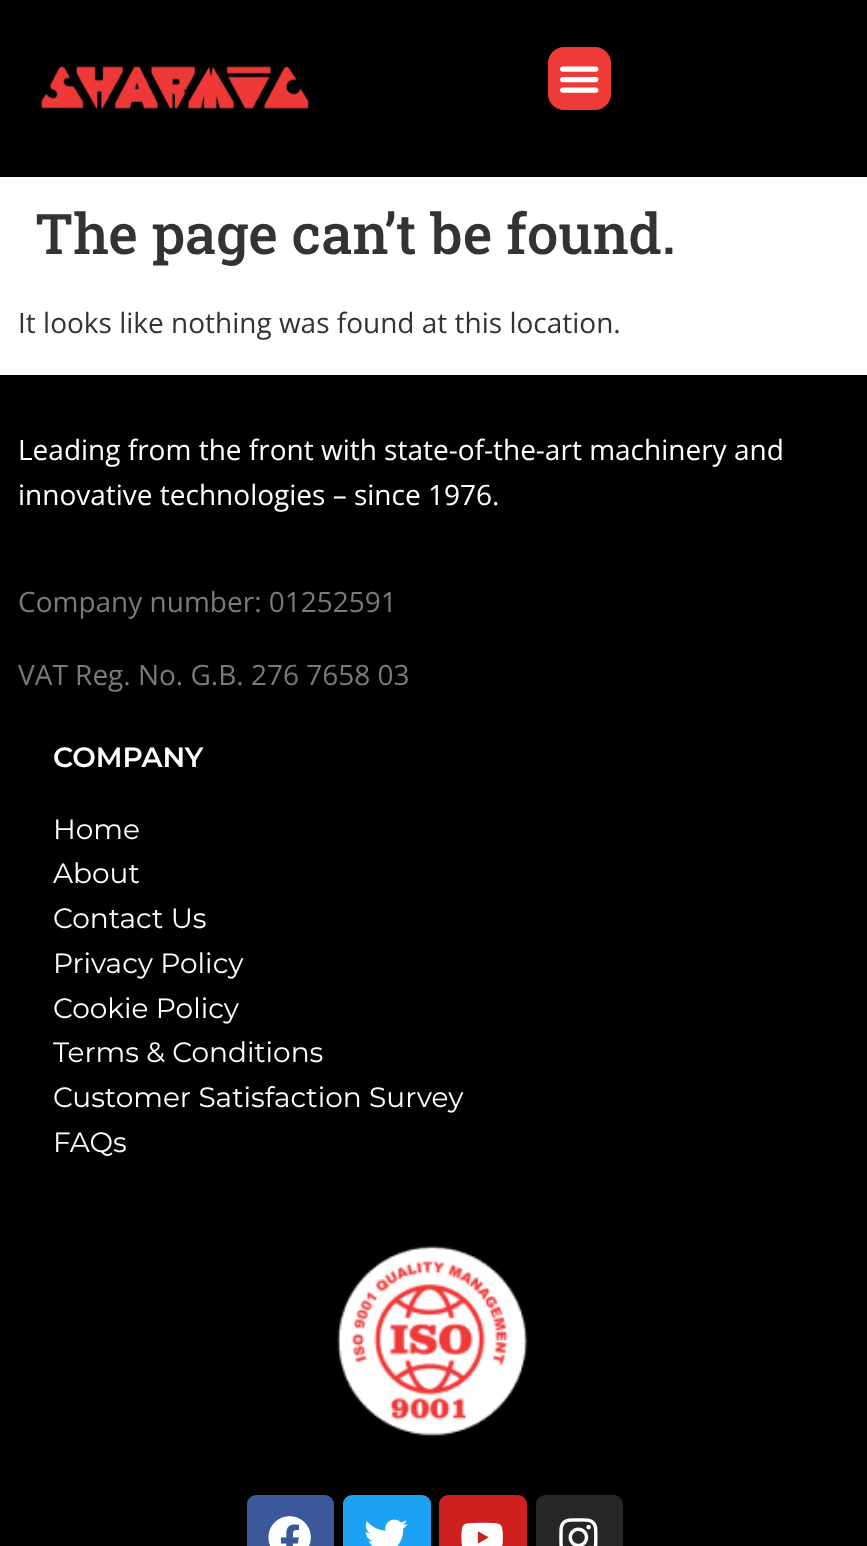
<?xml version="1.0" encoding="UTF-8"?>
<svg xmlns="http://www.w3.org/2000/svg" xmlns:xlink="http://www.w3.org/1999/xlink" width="867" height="1546">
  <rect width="100%" height="100%" fill="#ffffff" />
  <rect width="867" height="177" fill="#000000" />
  <image x="41" y="66" width="268" height="43" xlink:href="image1.png" />
  <rect x="548" y="47" width="63" height="63" rx="16" fill="#ee3a39" />
  <image x="560" y="66" width="39" height="27" xlink:href="image2.png" />
  <rect y="375" width="867" height="1171" fill="#000000" />
  <image x="337" y="1245" width="191" height="192" xlink:href="image3.png" />
  <rect x="247" y="1495" width="87" height="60" rx="9" fill="#3b5998" />
  <image x="268" y="1516" width="43" height="30" xlink:href="image4.png" />
  <rect x="343" y="1495" width="88" height="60" rx="9" fill="#1da1f2" />
  <image x="365" y="1519" width="43" height="27" xlink:href="image5.png" />
  <rect x="439" y="1495" width="88" height="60" rx="9" fill="#cd201f" />
  <image x="461" y="1522" width="42" height="24" xlink:href="image6.png" />
  <rect x="536" y="1495" width="87" height="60" rx="9" fill="#262626" />
  <image x="559" y="1518" width="39" height="28" xlink:href="image7.png" />
  <text x="35" y="254" style="font-family: Roboto Slab; font-size: 56px; font-weight: 500; fill: #333333">The page can’t be found.</text>
  <text x="18" y="333" style="font-family: Open Sans; font-size: 28px; fill: #333333">It looks like nothing was found at this location.</text>
  <text x="18" y="460" style="font-family: Open Sans; font-size: 28px; fill: #ffffff">Leading from the front with state-of-the-art machinery and</text>
  <text x="18" y="505" style="font-family: Open Sans; font-size: 28px; fill: #ffffff">innovative technologies – since 1976.</text>
  <text x="18" y="612" style="font-family: Open Sans; font-size: 28px; fill: #7a7a7a">Company number: 01252591</text>
  <text x="18" y="685" style="font-family: Open Sans; font-size: 28px; fill: #7a7a7a">VAT Reg. No. G.B. 276 7658 03</text>
  <text x="53" y="767" style="font-family: Montserrat; font-size: 28px; font-weight: 600; fill: #ffffff">COMPANY</text>
  <text x="53" y="839" style="font-family: Montserrat; font-size: 28px; fill: #ffffff">Home</text>
  <text x="53" y="883" style="font-family: Montserrat; font-size: 28px; fill: #ffffff">About</text>
  <text x="53" y="928" style="font-family: Montserrat; font-size: 28px; fill: #ffffff">Contact Us</text>
  <text x="53" y="973" style="font-family: Montserrat; font-size: 28px; fill: #ffffff">Privacy Policy</text>
  <text x="53" y="1018" style="font-family: Montserrat; font-size: 28px; fill: #ffffff">Cookie Policy</text>
  <text x="53" y="1062" style="font-family: Montserrat; font-size: 28px; fill: #ffffff">Terms &amp; Conditions</text>
  <text x="53" y="1107" style="font-family: Montserrat; font-size: 28px; fill: #ffffff">Customer Satisfaction Survey</text>
  <text x="53" y="1152" style="font-family: Montserrat; font-size: 28px; fill: #ffffff">FAQs</text>
</svg>
